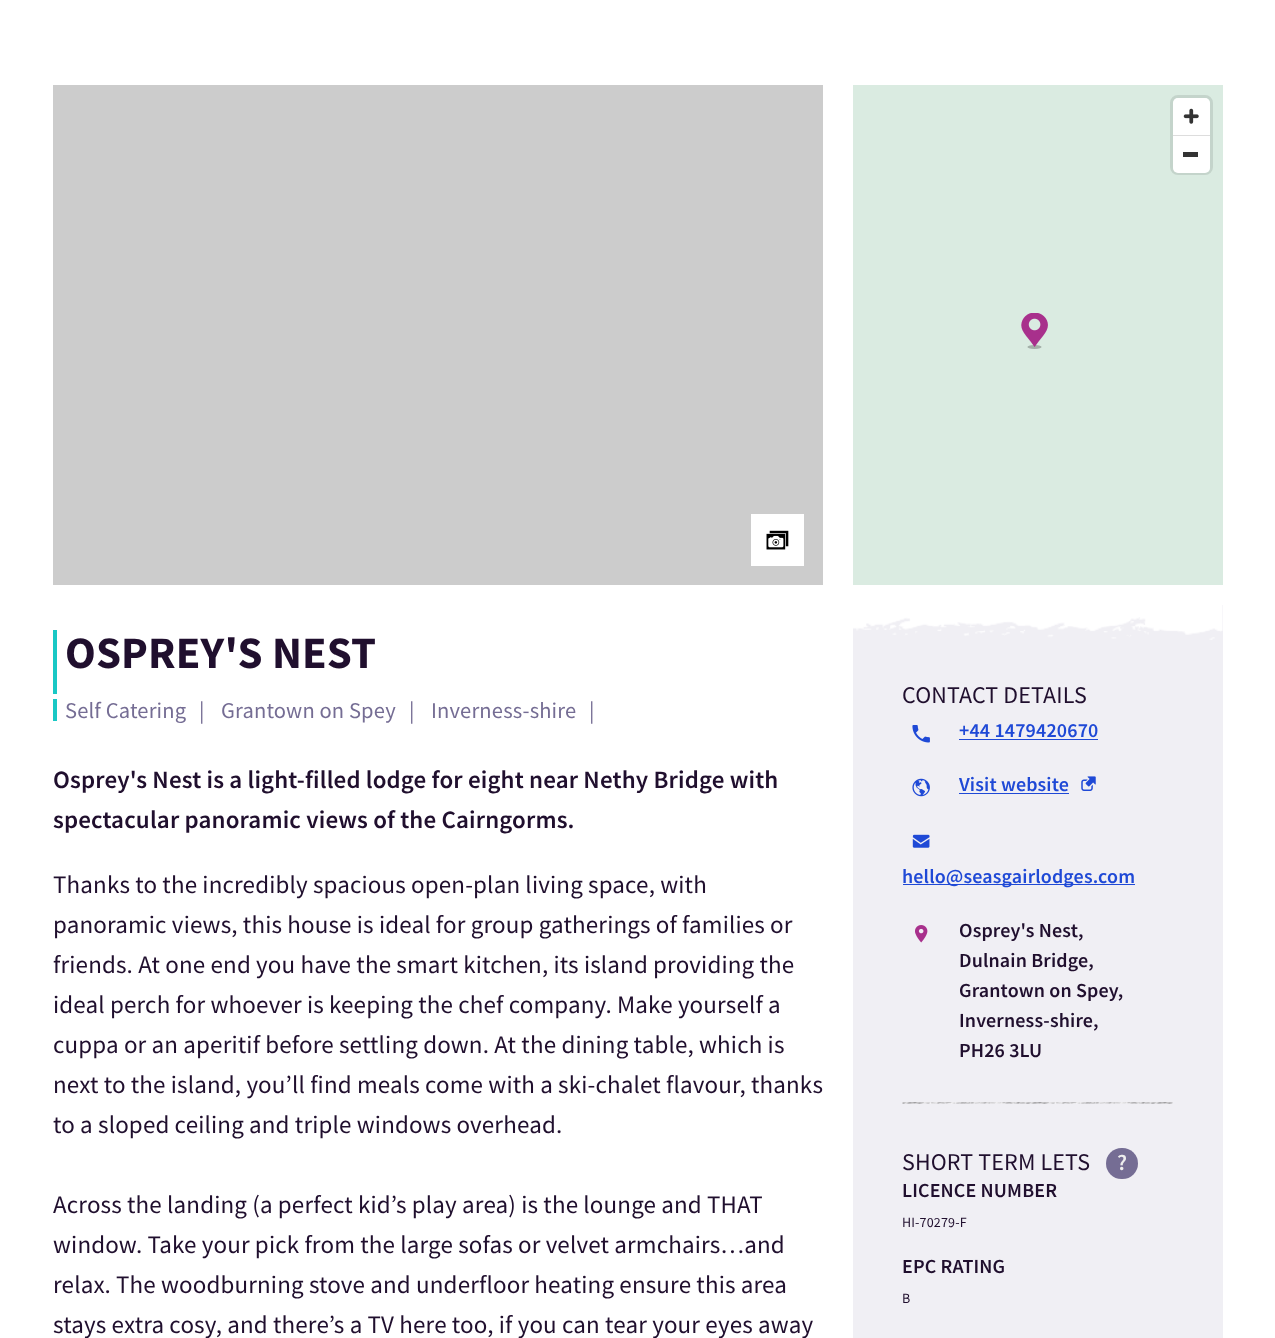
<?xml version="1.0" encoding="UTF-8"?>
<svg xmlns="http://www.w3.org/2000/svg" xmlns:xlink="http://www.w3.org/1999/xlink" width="1275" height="1338">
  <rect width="100%" height="100%" fill="#ffffff" />
  <rect x="53" y="85" width="770" height="500" fill="#cccccc" />
  <rect x="751" y="514" width="53" height="52" fill="#ffffff" />
  <image x="766" y="530" width="23" height="20" xlink:href="image1.png" />
  <rect x="853" y="85" width="370" height="500" fill="#daebe1" />
  <rect x="1171.5" y="96.5" width="40" height="77" rx="6.5" fill="none" stroke="#c4d4cb" stroke-width="3" />
  <rect x="1173" y="98" width="37" height="75" rx="5" fill="#ffffff" />
  <image x="1183" y="108" width="16" height="16" xlink:href="image2.png" />
  <rect x="1183" y="152" width="15" height="5" fill="#333333" />
  <rect x="1173" y="135" width="37" height="1" fill="#dddddd" />
  <image x="1021" y="313" width="27" height="36" xlink:href="image3.png" />
  <rect x="53" y="630" width="4" height="64" fill="#19c8c5" />
  <rect x="53" y="699" width="4" height="22" fill="#19c8c5" />
  <rect x="853" y="605" width="370" height="733" fill="#f0eff4" />
  <image x="853" y="605" width="370" height="35" xlink:href="image4.png" />
  <image x="912" y="725" width="18" height="18" xlink:href="image5.png" />
  <rect x="959" y="739" width="139" height="1" fill="#1f49d6" />
  <image x="912" y="778" width="18" height="19" xlink:href="image6.png" />
  <rect x="959" y="793" width="110" height="1" fill="#1f49d6" />
  <image x="1081" y="776" width="15" height="15" xlink:href="image7.png" />
  <image x="912" y="834" width="18" height="14" xlink:href="image8.png" />
  <rect x="903" y="884" width="232" height="1" fill="#1f49d6" />
  <image x="915" y="925" width="13" height="18" xlink:href="image9.png" />
  <image x="902" y="1102" width="271" height="2" xlink:href="image10.png" />
  <rect x="1106" y="1148" width="32" height="31" rx="15.5" fill="#756d94" />
  <text x="65" y="668" style="font-family: Source Sans Pro; font-size: 45px; font-weight: bold; letter-spacing: 0.15px; fill: #200f2e">OSPREY'S NEST</text>
  <text x="65" y="718" style="font-family: Source Sans Pro; font-size: 22.5px; letter-spacing: 0.15px; fill: #756d94">Self Catering</text>
  <text x="199" y="718" style="font-family: Source Sans Pro; font-size: 22.5px; letter-spacing: 0.15px; fill: #756d94">|</text>
  <text x="221" y="718" style="font-family: Source Sans Pro; font-size: 22.5px; letter-spacing: 0.15px; fill: #756d94">Grantown on Spey</text>
  <text x="409" y="718" style="font-family: Source Sans Pro; font-size: 22.5px; letter-spacing: 0.15px; fill: #756d94">|</text>
  <text x="431" y="718" style="font-family: Source Sans Pro; font-size: 22.5px; letter-spacing: 0.15px; fill: #756d94">Inverness-shire</text>
  <text x="589" y="718" style="font-family: Source Sans Pro; font-size: 22.5px; letter-spacing: 0.15px; fill: #756d94">|</text>
  <text x="53" y="788" style="font-family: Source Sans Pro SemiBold; font-size: 25px; font-weight: 600; letter-spacing: 0.15px; fill: #200f2e">Osprey's Nest is a light-filled lodge for eight near Nethy Bridge with</text>
  <text x="53" y="828" style="font-family: Source Sans Pro SemiBold; font-size: 25px; font-weight: 600; letter-spacing: 0.15px; fill: #200f2e">spectacular panoramic views of the Cairngorms.</text>
  <text x="53" y="893" style="font-family: Source Sans Pro; font-size: 25px; letter-spacing: 0.15px; fill: #200f2e">Thanks to the incredibly spacious open-plan living space, with</text>
  <text x="53" y="933" style="font-family: Source Sans Pro; font-size: 25px; letter-spacing: 0.15px; fill: #200f2e">panoramic views, this house is ideal for group gatherings of families or</text>
  <text x="53" y="973" style="font-family: Source Sans Pro; font-size: 25px; letter-spacing: 0.15px; fill: #200f2e">friends. At one end you have the smart kitchen, its island providing the</text>
  <text x="53" y="1013" style="font-family: Source Sans Pro; font-size: 25px; letter-spacing: 0.15px; fill: #200f2e">ideal perch for whoever is keeping the chef company. Make yourself a</text>
  <text x="53" y="1053" style="font-family: Source Sans Pro; font-size: 25px; letter-spacing: 0.15px; fill: #200f2e">cuppa or an aperitif before settling down. At the dining table, which is</text>
  <text x="53" y="1093" style="font-family: Source Sans Pro; font-size: 25px; letter-spacing: 0.15px; fill: #200f2e">next to the island, you’ll find meals come with a ski-chalet flavour, thanks</text>
  <text x="53" y="1133" style="font-family: Source Sans Pro; font-size: 25px; letter-spacing: 0.15px; fill: #200f2e">to a sloped ceiling and triple windows overhead.</text>
  <text x="53" y="1213" style="font-family: Source Sans Pro; font-size: 25px; letter-spacing: 0.15px; fill: #200f2e">Across the landing (a perfect kid’s play area) is the lounge and THAT</text>
  <text x="53" y="1253" style="font-family: Source Sans Pro; font-size: 25px; letter-spacing: 0.15px; fill: #200f2e">window. Take your pick from the large sofas or velvet armchairs…and</text>
  <text x="53" y="1293" style="font-family: Source Sans Pro; font-size: 25px; letter-spacing: 0.15px; fill: #200f2e">relax. The woodburning stove and underfloor heating ensure this area</text>
  <text x="53" y="1333" style="font-family: Source Sans Pro; font-size: 25px; letter-spacing: 0.15px; fill: #200f2e">stays extra cosy, and there’s a TV here too, if you can tear your eyes away</text>
  <text x="902" y="703" style="font-family: Source Sans Pro; font-size: 24px; letter-spacing: 0.15px; fill: #200f2e">CONTACT DETAILS</text>
  <text x="959" y="737" style="font-family: Source Sans Pro SemiBold; font-size: 20px; font-weight: 600; letter-spacing: 0.15px; fill: #1f49d6">+44 1479420670</text>
  <text x="959" y="791" style="font-family: Source Sans Pro SemiBold; font-size: 20px; font-weight: 600; letter-spacing: 0.15px; fill: #1f49d6">Visit website</text>
  <text x="902" y="883" style="font-family: Source Sans Pro SemiBold; font-size: 20px; font-weight: 600; letter-spacing: 0.15px; fill: #1f49d6">hello@seasgairlodges.com</text>
  <text x="959" y="937" style="font-family: Source Sans Pro SemiBold; font-size: 20px; font-weight: 600; letter-spacing: 0.15px; fill: #200f2e">Osprey's Nest,</text>
  <text x="959" y="967" style="font-family: Source Sans Pro SemiBold; font-size: 20px; font-weight: 600; letter-spacing: 0.15px; fill: #200f2e">Dulnain Bridge,</text>
  <text x="959" y="997" style="font-family: Source Sans Pro SemiBold; font-size: 20px; font-weight: 600; letter-spacing: 0.15px; fill: #200f2e">Grantown on Spey,</text>
  <text x="959" y="1027" style="font-family: Source Sans Pro SemiBold; font-size: 20px; font-weight: 600; letter-spacing: 0.15px; fill: #200f2e">Inverness-shire,</text>
  <text x="959" y="1057" style="font-family: Source Sans Pro SemiBold; font-size: 20px; font-weight: 600; letter-spacing: 0.15px; fill: #200f2e">PH26 3LU</text>
  <text x="902" y="1170" style="font-family: Source Sans Pro; font-size: 24px; letter-spacing: 0.15px; fill: #200f2e">SHORT TERM LETS</text>
  <text x="1117" y="1170" style="font-family: Source Sans Pro SemiBold; font-size: 22.5px; font-weight: 600; letter-spacing: 0.15px; fill: #eeeeee">?</text>
  <text x="902" y="1197" style="font-family: Source Sans Pro SemiBold; font-size: 20px; font-weight: 600; letter-spacing: 0.15px; fill: #200f2e">LICENCE NUMBER</text>
  <text x="902" y="1227" style="font-family: Source Sans Pro; font-size: 14px; letter-spacing: 0.15px; fill: #200f2e">HI-70279-F</text>
  <text x="902" y="1273" style="font-family: Source Sans Pro SemiBold; font-size: 20px; font-weight: 600; letter-spacing: 0.15px; fill: #200f2e">EPC RATING</text>
  <text x="902" y="1303" style="font-family: Source Sans Pro; font-size: 14px; letter-spacing: 0.15px; fill: #200f2e">B</text>
</svg>
